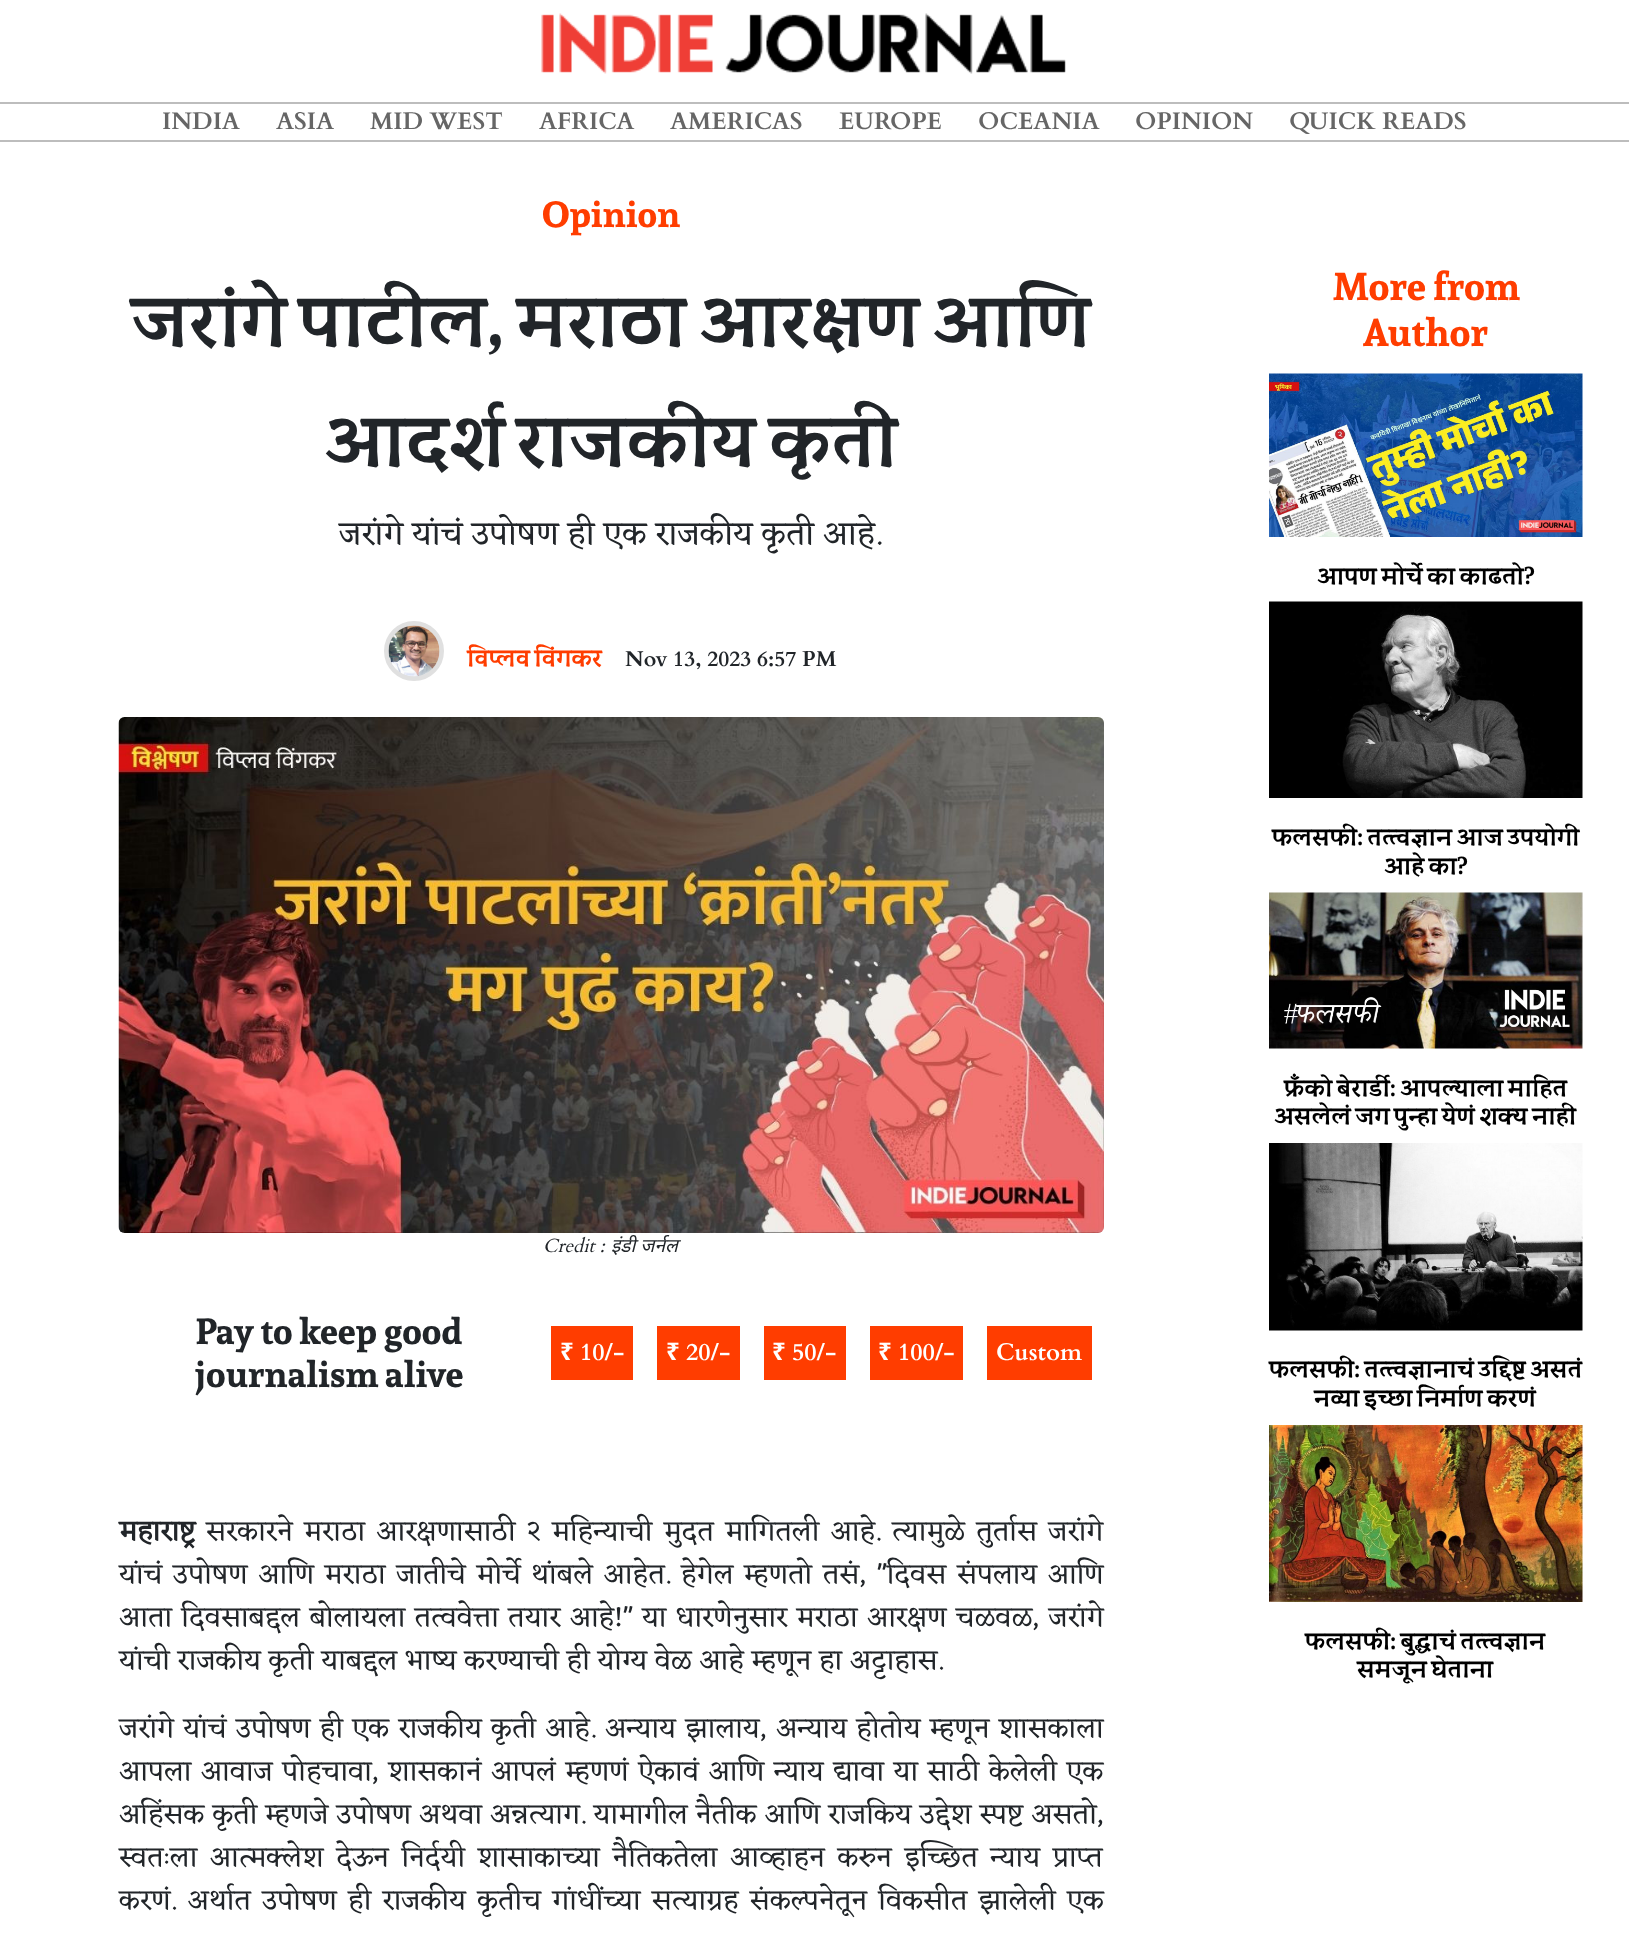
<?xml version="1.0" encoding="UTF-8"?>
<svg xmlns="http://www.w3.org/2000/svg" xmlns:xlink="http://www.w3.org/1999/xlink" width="1629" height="1937">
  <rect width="100%" height="100%" fill="#ffffff" />
  <image x="541" y="13" width="525" height="61" xlink:href="image1.png" />
  <rect y="102" width="1629" height="2" fill="#bdbdbd" />
  <rect y="140" width="1629" height="2" fill="#bdbdbd" />
  <circle cx="414" cy="651" r="27.5" fill="none" stroke="#e0e0e0" stroke-width="5" />
  <image x="388" y="625" width="52" height="52" xlink:href="image2.png" />
  <image x="118" y="717" width="986" height="516" xlink:href="image3.png" />
  <rect x="551" y="1326" width="82" height="54" fill="#ff3d00" />
  <rect x="657" y="1326" width="83" height="54" fill="#ff3d00" />
  <rect x="764" y="1326" width="82" height="54" fill="#ff3d00" />
  <rect x="870" y="1326" width="93" height="54" fill="#ff3d00" />
  <rect x="987" y="1326" width="105" height="54" fill="#ff3d00" />
  <image x="1269" y="373" width="314" height="164" xlink:href="image4.png" />
  <image x="1269" y="601" width="314" height="197" xlink:href="image5.png" />
  <image x="1269" y="892" width="314" height="157" xlink:href="image6.png" />
  <image x="1269" y="1143" width="314" height="188" xlink:href="image7.png" />
  <image x="1269" y="1425" width="314" height="177" xlink:href="image8.png" />
  <text x="162" y="129" style="font-family: Cardo; font-size: 24px; font-weight: bold; fill: #666666">INDIA</text>
  <text x="276" y="129" style="font-family: Cardo; font-size: 24px; font-weight: bold; fill: #666666">ASIA</text>
  <text x="370" y="129" style="font-family: Cardo; font-size: 24px; font-weight: bold; fill: #666666">MID WEST</text>
  <text x="539" y="129" style="font-family: Cardo; font-size: 24px; font-weight: bold; fill: #666666">AFRICA</text>
  <text x="670" y="129" style="font-family: Cardo; font-size: 24px; font-weight: bold; fill: #666666">AMERICAS</text>
  <text x="839" y="129" style="font-family: Cardo; font-size: 24px; font-weight: bold; fill: #666666">EUROPE</text>
  <text x="978" y="129" style="font-family: Cardo; font-size: 24px; font-weight: bold; fill: #666666">OCEANIA</text>
  <text x="1135" y="129" style="font-family: Cardo; font-size: 24px; font-weight: bold; fill: #666666">OPINION</text>
  <text x="1289" y="129" style="font-family: Cardo; font-size: 24px; font-weight: bold; fill: #666666">QUICK READS</text>
  <text x="542" y="227" style="font-family: Sura; font-size: 36px; font-weight: bold; fill: #ff3d00">Opinion</text>
  <text x="131" y="345" style="font-family: Sura; font-size: 72px; font-weight: bold; fill: #212529">जरांगे पाटील, मराठा आरक्षण आणि</text>
  <text x="324" y="465" style="font-family: Sura; font-size: 72px; font-weight: bold; fill: #212529">आदर्श राजकीय कृती</text>
  <text x="339" y="544" style="font-family: Eczar; font-size: 33.6px; fill: #212529">जरांगे यांचं उपोषण ही एक राजकीय कृती आहे.</text>
  <text x="467" y="666" style="font-family: Sura; font-size: 24px; font-weight: bold; fill: #ff3d00">विप्लव विंगकर</text>
  <text x="625" y="666" style="font-family: Cardo; font-size: 21.5px; font-weight: bold; fill: #212529">Nov 13, 2023 6:57 PM</text>
  <text x="543" y="1252" style="font-family: Cardo; font-size: 19px; font-style: italic; fill: #212529">Credit :</text>
  <text x="611" y="1252" style="font-family: Noto Sans; font-size: 19px; font-style: italic; fill: #212529">इंडी जर्नल</text>
  <text x="195" y="1344" style="font-family: Sura; font-size: 36px; font-weight: bold; fill: #212529">Pay to keep good</text>
  <text x="195" y="1387" style="font-family: Sura; font-size: 36px; font-weight: bold; fill: #212529">journalism alive</text>
  <text x="560" y="1360" style="font-family: Noto Sans; font-size: 24px; font-weight: bold; fill: #ffffff">₹</text>
  <text x="580" y="1360" style="font-family: Cardo; font-size: 24px; font-weight: bold; fill: #ffffff">10/-</text>
  <text x="666" y="1360" style="font-family: Noto Sans; font-size: 24px; font-weight: bold; fill: #ffffff">₹</text>
  <text x="686" y="1360" style="font-family: Cardo; font-size: 24px; font-weight: bold; fill: #ffffff">20/-</text>
  <text x="772" y="1360" style="font-family: Noto Sans; font-size: 24px; font-weight: bold; fill: #ffffff">₹</text>
  <text x="792" y="1360" style="font-family: Cardo; font-size: 24px; font-weight: bold; fill: #ffffff">50/-</text>
  <text x="878" y="1360" style="font-family: Noto Sans; font-size: 24px; font-weight: bold; fill: #ffffff">₹</text>
  <text x="898" y="1360" style="font-family: Cardo; font-size: 24px; font-weight: bold; fill: #ffffff">100/-</text>
  <text x="996" y="1360" style="font-family: Cardo; font-size: 24px; font-weight: bold; fill: #ffffff">Custom</text>
  <text x="119" y="1540" style="font-family: Eczar; font-size: 28.8px; font-weight: bold; fill: #212529">महाराष्ट्र</text>
  <text x="206" y="1540" word-spacing="3.6" style="font-family: Eczar; font-size: 28.8px; fill: #212529">सरकारने मराठा आरक्षणासाठी २ महिन्याची मुदत मागितली आहे. त्यामुळे तुर्तास जरांगे</text>
  <text x="119" y="1583" word-spacing="2.9" style="font-family: Eczar; font-size: 28.8px; fill: #212529">यांचं उपोषण आणि मराठा जातीचे मोर्चे थांबले आहेत. हेगेल म्हणतो तसं, "दिवस संपलाय आणि</text>
  <text x="119" y="1626" word-spacing="1.6" style="font-family: Eczar; font-size: 28.8px; fill: #212529">आता दिवसाबद्दल बोलायला तत्ववेत्ता तयार आहे!" या धारणेनुसार मराठा आरक्षण चळवळ, जरांगे</text>
  <text x="119" y="1669" style="font-family: Eczar; font-size: 28.8px; fill: #212529">यांची राजकीय कृती याबद्दल भाष्य करण्याची ही योग्य वेळ आहे म्हणून हा अट्टाहास.</text>
  <text x="119" y="1737" word-spacing="1.6" style="font-family: Eczar; font-size: 28.8px; fill: #212529">जरांगे यांचं उपोषण ही एक राजकीय कृती आहे. अन्याय झालाय, अन्याय होतोय म्हणून शासकाला</text>
  <text x="119" y="1780" word-spacing="1.9" style="font-family: Eczar; font-size: 28.8px; fill: #212529">आपला आवाज पोहचावा, शासकानं आपलं म्हणणं ऐकावं आणि न्याय द्यावा या साठी केलेली एक</text>
  <text x="119" y="1823" word-spacing="0.25" style="font-family: Eczar; font-size: 28.8px; fill: #212529">अहिंसक कृती म्हणजे उपोषण अथवा अन्नत्याग. यामागील नैतीक आणि राजकिय उद्देश स्पष्ट असतो,</text>
  <text x="119" y="1866" word-spacing="5" style="font-family: Eczar; font-size: 28.8px; fill: #212529">स्वतःला आत्मक्लेश देऊन निर्दयी शासाकाच्या नैतिकतेला आव्हाहन करुन इच्छित न्याय प्राप्त</text>
  <text x="119" y="1909" word-spacing="3.6" style="font-family: Eczar; font-size: 28.8px; fill: #212529">करणं. अर्थात उपोषण ही राजकीय कृतीच गांधींच्या सत्याग्रह संकल्पनेतून विकसीत झालेली एक</text>
  <text x="1332" y="300" style="font-family: Sura; font-size: 38.5px; font-weight: bold; fill: #ff3d00">More from</text>
  <text x="1363" y="346" style="font-family: Sura; font-size: 38.5px; font-weight: bold; fill: #ff3d00">Author</text>
  <text x="1317" y="584" style="font-family: Sura; font-size: 24px; font-weight: bold; fill: #000000">आपण मोर्चे का काढतो?</text>
  <text x="1272" y="845" style="font-family: Sura; font-size: 24px; font-weight: bold; fill: #000000">फलसफी: तत्त्वज्ञान आज उपयोगी</text>
  <text x="1384" y="874" style="font-family: Sura; font-size: 24px; font-weight: bold; fill: #000000">आहे का?</text>
  <text x="1284" y="1096" style="font-family: Sura; font-size: 24px; font-weight: bold; fill: #000000">फ्रँको बेरार्डी: आपल्याला माहित</text>
  <text x="1274" y="1124" style="font-family: Sura; font-size: 24px; font-weight: bold; fill: #000000">असलेलं जग पुन्हा येणं शक्य नाही</text>
  <text x="1269" y="1377" style="font-family: Sura; font-size: 24px; font-weight: bold; fill: #000000">फलसफी: तत्त्वज्ञानाचं उद्दिष्ट असतं</text>
  <text x="1314" y="1406" style="font-family: Sura; font-size: 24px; font-weight: bold; fill: #000000">नव्या इच्छा निर्माण करणं</text>
  <text x="1305" y="1649" style="font-family: Sura; font-size: 24px; font-weight: bold; fill: #000000">फलसफी: बुद्धाचं तत्त्वज्ञान</text>
  <text x="1357" y="1677" style="font-family: Sura; font-size: 24px; font-weight: bold; fill: #000000">समजून घेताना</text>
</svg>
